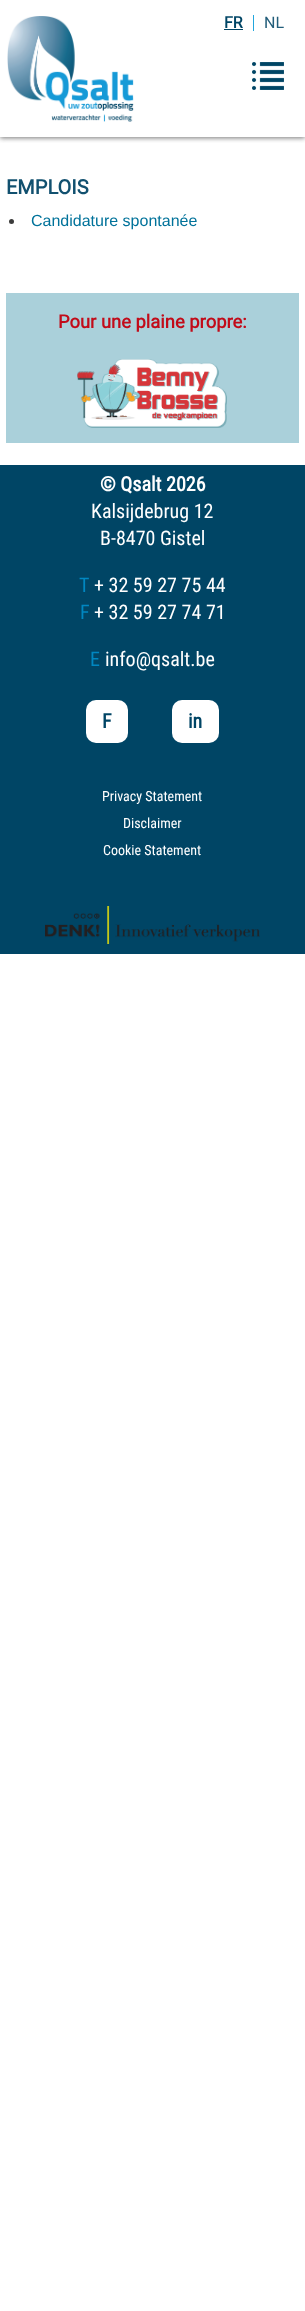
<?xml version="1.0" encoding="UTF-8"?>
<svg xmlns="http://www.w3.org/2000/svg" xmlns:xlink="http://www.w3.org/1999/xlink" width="305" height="2311">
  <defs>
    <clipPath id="clip1"><rect x="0" y="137" width="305" height="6" /></clipPath>
  </defs>
  <rect width="100%" height="100%" fill="#ffffff" />
  <g clip-path="url(#clip1)">
    <rect y="1" width="305" height="137" fill="#777777" filter="blur(2.5px)" />
  </g>
  <image x="7" y="16" width="127" height="106" xlink:href="image1.png" />
  <rect x="253" y="15" width="1" height="16" fill="#22a6dd" />
  <rect x="224" y="29" width="19" height="1" fill="#004465" />
  <image x="252" y="62" width="32" height="28" xlink:href="image2.png" />
  <circle cx="11.5" cy="221.5" r="2.5" fill="#3c3c3b" />
  <rect x="6" y="293" width="293" height="150" fill="#aad0da" />
  <image x="77" y="359" width="150" height="69" xlink:href="image3.png" />
  <rect y="465" width="305" height="489" fill="#004565" />
  <rect x="86" y="700" width="42" height="43" rx="10" fill="#ffffff" />
  <rect x="172" y="700" width="47" height="43" rx="10" fill="#ffffff" />
  <image x="45" y="906" width="215" height="38" xlink:href="image4.png" />
  <text x="224" y="28" style="font-family: Roboto; font-size: 16px; font-weight: bold; fill: #004565">FR</text>
  <text x="264" y="28" style="font-family: Roboto; font-size: 16px; fill: #225d7a">NL</text>
  <text x="6" y="194" style="font-family: Roboto; font-size: 20px; font-weight: bold; fill: #11506f">EMPLOIS</text>
  <text x="31" y="226" style="font-family: Liberation Sans; font-size: 16px; fill: #00729a">Candidature spontanée</text>
  <text x="58" y="328" style="font-family: Roboto; font-size: 18.4px; font-weight: bold; fill: #c20b19">Pour une plaine propre:</text>
  <text x="100" y="491" style="font-family: Roboto Condensed; font-size: 20px; font-weight: bold; fill: #ffffff">© Qsalt 2026</text>
  <text x="91" y="518" style="font-family: Roboto Condensed; font-size: 20px; fill: #ffffff">Kalsijdebrug 12</text>
  <text x="100" y="545" style="font-family: Roboto Condensed; font-size: 20px; fill: #ffffff">B-8470 Gistel</text>
  <text x="79" y="592" style="font-family: Roboto Condensed; font-size: 20px; fill: #0087c1">T</text>
  <text x="94" y="592" style="font-family: Roboto Condensed; font-size: 20px; fill: #ffffff">+ 32 59 27 75 44</text>
  <text x="80" y="619" style="font-family: Roboto Condensed; font-size: 20px; fill: #0087c1">F</text>
  <text x="94" y="619" style="font-family: Roboto Condensed; font-size: 20px; fill: #ffffff">+ 32 59 27 74 71</text>
  <text x="90" y="666" style="font-family: Roboto Condensed; font-size: 20px; fill: #0087c1">E</text>
  <text x="105" y="666" style="font-family: Roboto Condensed; font-size: 20px; fill: #ffffff">info@qsalt.be</text>
  <text x="102" y="728" style="font-family: Roboto Condensed; font-size: 20px; font-weight: bold; fill: #004565">F</text>
  <text x="188" y="728" style="font-family: Roboto Condensed; font-size: 20px; font-weight: bold; fill: #004565">in</text>
  <text x="102" y="801" style="font-family: Roboto Condensed; font-size: 14px; fill: #ffffff">Privacy Statement</text>
  <text x="123" y="828" style="font-family: Roboto Condensed; font-size: 14px; fill: #ffffff">Disclaimer</text>
  <text x="103" y="855" style="font-family: Roboto Condensed; font-size: 14px; fill: #ffffff">Cookie Statement</text>
</svg>
